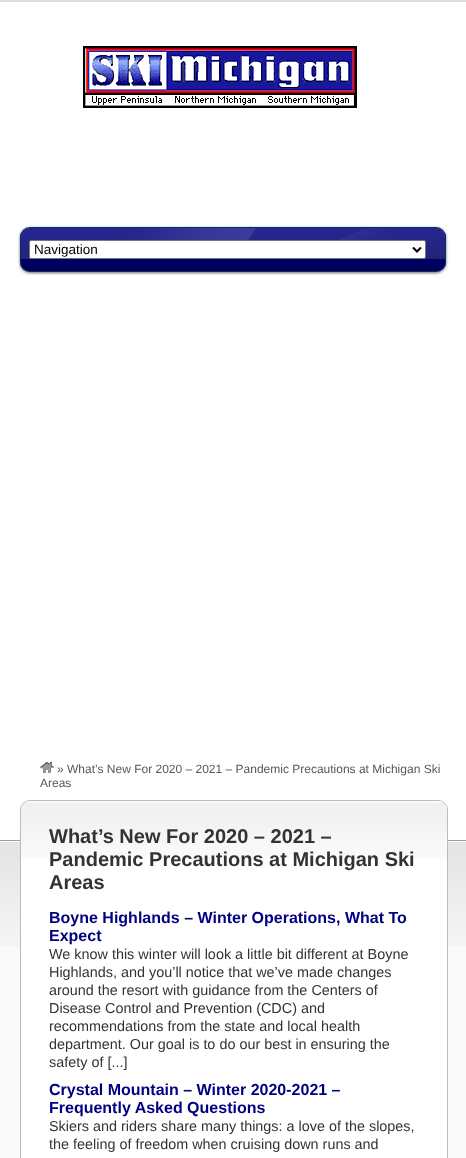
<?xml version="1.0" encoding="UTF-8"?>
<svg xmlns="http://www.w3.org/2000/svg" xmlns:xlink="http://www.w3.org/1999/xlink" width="466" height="1158">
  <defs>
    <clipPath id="clip1"><rect x="20" y="227" width="426" height="45" rx="10" /></clipPath>
    <linearGradient id="g1" gradientUnits="userSpaceOnUse" x1="233" y1="228" x2="233" y2="271"><stop offset="0" stop-color="#000080" /><stop offset="1" stop-color="#000059" /></linearGradient>
  </defs>
  <rect width="100%" height="100%" fill="#ffffff" />
  <rect width="466" height="2" fill="#dddddd" />
  <image x="83" y="46" width="274" height="62" xlink:href="image1.png" />
  <rect x="20" y="228" width="426" height="45" rx="10" fill="#666666" filter="blur(1.5px)" />
  <g clip-path="url(#clip1)">
    <rect x="20" y="228" width="426" height="43" fill="url(#g1)" />
  </g>
  <rect x="20.5" y="227.5" width="425" height="44" rx="9.5" fill="none" stroke="#062f66" />
  <image x="21" y="228" width="424" height="31" xlink:href="image2.png" />
  <rect x="29.5" y="240.5" width="396" height="18" rx="1.5" fill="#ffffff" stroke="#767676" />
  <path d="M 413 247.5 l 4 4 l 4 -4" fill="none" stroke="#000000" stroke-width="2" />
  <image x="40" y="762" width="14" height="11" xlink:href="image3.png" />
  <rect y="947" width="466" height="211" fill="#fafafa" />
  <image x="0" y="840" width="466" height="107" xlink:href="image4.png" />
  <rect x="20.5" y="800.5" width="427" height="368" rx="9.5" fill="#ffffff" stroke="#bdbcbd" />
  <image x="21" y="801" width="426" height="58" xlink:href="image5.png" />
  <text x="34" y="254" style="font-family: Liberation Sans; font-size: 13.5px; fill: #000000">Navigation</text>
  <text x="57" y="773" style="font-family: Liberation Sans; font-size: 12px; fill: #59584f">» What’s New For 2020 – 2021 – Pandemic Precautions at Michigan Ski</text>
  <text x="40" y="787" style="font-family: Liberation Sans; font-size: 12px; fill: #59584f">Areas</text>
  <text x="49" y="843" style="font-family: Liberation Sans; font-size: 20px; font-weight: bold; fill: #333333">What’s New For 2020 – 2021 –</text>
  <text x="49" y="866" style="font-family: Liberation Sans; font-size: 20px; font-weight: bold; fill: #333333">Pandemic Precautions at Michigan Ski</text>
  <text x="49" y="889" style="font-family: Liberation Sans; font-size: 20px; font-weight: bold; fill: #333333">Areas</text>
  <text x="49" y="923" style="font-family: Liberation Sans; font-size: 16px; font-weight: bold; fill: #000080">Boyne Highlands – Winter Operations, What To</text>
  <text x="49" y="941" style="font-family: Liberation Sans; font-size: 16px; font-weight: bold; fill: #000080">Expect</text>
  <text x="49" y="959" style="font-family: Liberation Sans; font-size: 14.4px; fill: #333333">We know this winter will look a little bit different at Boyne</text>
  <text x="49" y="977" style="font-family: Liberation Sans; font-size: 14.4px; fill: #333333">Highlands, and you’ll notice that we’ve made changes</text>
  <text x="49" y="995" style="font-family: Liberation Sans; font-size: 14.4px; fill: #333333">around the resort with guidance from the Centers of</text>
  <text x="49" y="1013" style="font-family: Liberation Sans; font-size: 14.4px; fill: #333333">Disease Control and Prevention (CDC) and</text>
  <text x="49" y="1031" style="font-family: Liberation Sans; font-size: 14.4px; fill: #333333">recommendations from the state and local health</text>
  <text x="49" y="1049" style="font-family: Liberation Sans; font-size: 14.4px; fill: #333333">department. Our goal is to do our best in ensuring the</text>
  <text x="49" y="1067" style="font-family: Liberation Sans; font-size: 14.4px; fill: #333333">safety of [...]</text>
  <text x="49" y="1095" style="font-family: Liberation Sans; font-size: 16px; font-weight: bold; fill: #000080">Crystal Mountain – Winter 2020-2021 –</text>
  <text x="49" y="1113" style="font-family: Liberation Sans; font-size: 16px; font-weight: bold; fill: #000080">Frequently Asked Questions</text>
  <text x="49" y="1131" style="font-family: Liberation Sans; font-size: 14.4px; fill: #333333">Skiers and riders share many things: a love of the slopes,</text>
  <text x="49" y="1149" style="font-family: Liberation Sans; font-size: 14.4px; fill: #333333">the feeling of freedom when cruising down runs and</text>
</svg>
